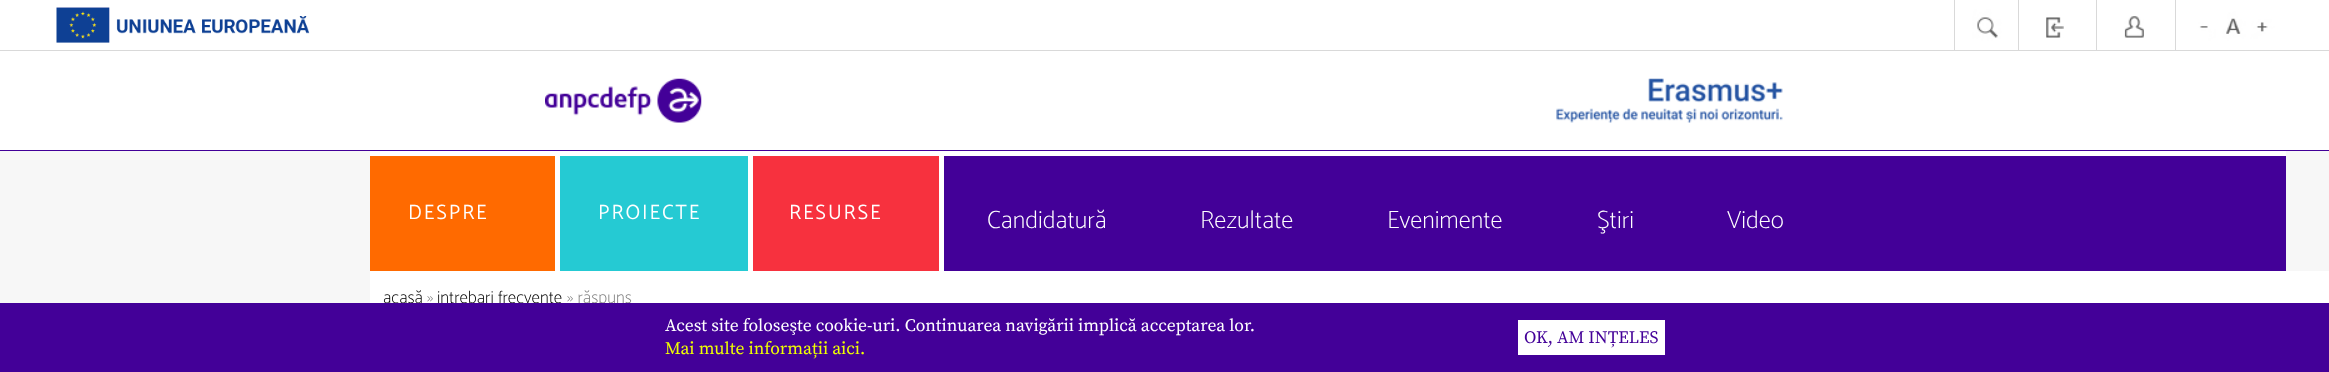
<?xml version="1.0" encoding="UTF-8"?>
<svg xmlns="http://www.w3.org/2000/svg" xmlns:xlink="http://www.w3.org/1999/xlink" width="2329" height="372">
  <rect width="100%" height="100%" fill="#f7f7f7" />
  <rect width="2329" height="50" fill="#ffffff" />
  <rect y="50" width="2329" height="1" fill="#d9d9d9" />
  <image x="56" y="7" width="254" height="36" xlink:href="image1.png" />
  <rect x="1954" width="1" height="50" fill="#d9d9d9" />
  <image x="1961" y="0" width="50" height="50" xlink:href="image2.png" />
  <rect x="2018" width="1" height="50" fill="#d9d9d9" />
  <image x="2046" y="17" width="18" height="21" xlink:href="image3.png" />
  <rect x="2096" width="1" height="50" fill="#d9d9d9" />
  <image x="2124" y="16" width="20" height="22" xlink:href="image4.png" />
  <rect x="2175" width="1" height="50" fill="#d9d9d9" />
  <image x="2191" y="0" width="25" height="50" xlink:href="image5.png" />
  <image x="2221" y="0" width="25" height="50" xlink:href="image6.png" />
  <image x="2250" y="0" width="25" height="50" xlink:href="image7.png" />
  <rect y="51" width="2329" height="99" fill="#ffffff" />
  <image x="545" y="78" width="157" height="45" xlink:href="image8.png" />
  <image x="1556" y="78" width="227" height="45" xlink:href="image9.png" />
  <rect y="150" width="2329" height="1" fill="#420098" />
  <rect x="370" y="151" width="1916" height="5" fill="#ffffff" />
  <rect x="370" y="156" width="185" height="115" fill="#ff6a00" />
  <rect x="555" y="156" width="5" height="115" fill="#ffffff" />
  <rect x="560" y="156" width="188" height="115" fill="#25cad3" />
  <rect x="748" y="156" width="5" height="115" fill="#ffffff" />
  <rect x="753" y="156" width="186" height="115" fill="#f7313e" />
  <rect x="944" y="156" width="1342" height="115" fill="#430098" />
  <rect x="939" y="151" width="5" height="120" fill="#ffffff" />
  <rect x="370" y="271" width="1959" height="32" fill="#ffffff" />
  <text x="408" y="219" style="font-family: Catamaran; font-size: 20px; font-weight: bold; letter-spacing: 2.5px; fill: #ffffff">DESPRE</text>
  <text x="598" y="219" style="font-family: Catamaran; font-size: 20px; font-weight: bold; letter-spacing: 2.5px; fill: #ffffff">PROIECTE</text>
  <text x="789" y="219" style="font-family: Catamaran; font-size: 20px; font-weight: bold; letter-spacing: 2.5px; fill: #ffffff">RESURSE</text>
  <text x="987" y="228" style="font-family: Catamaran; font-size: 25px; font-weight: 100; fill: #ffffff">Candidatură</text>
  <text x="1200" y="228" style="font-family: Catamaran; font-size: 25px; font-weight: 100; fill: #ffffff">Rezultate</text>
  <text x="1387" y="228" style="font-family: Catamaran; font-size: 25px; font-weight: 100; fill: #ffffff">Evenimente</text>
  <text x="1597" y="228" style="font-family: Catamaran; font-size: 25px; font-weight: 100; fill: #ffffff">Ştiri</text>
  <text x="1727" y="228" style="font-family: Catamaran; font-size: 25px; font-weight: 100; fill: #ffffff">Video</text>
  <text x="383" y="303" style="font-family: Catamaran; font-size: 17.5px; font-weight: 100; fill: #000000">acasă</text>
  <text x="427" y="303" style="font-family: Catamaran; font-size: 17.5px; font-weight: 100; fill: #808080">»</text>
  <text x="437" y="303" style="font-family: Catamaran; font-size: 17.5px; font-weight: 100; fill: #000000">intrebari frecvente</text>
  <text x="567" y="303" style="font-family: Catamaran; font-size: 17.5px; font-weight: 100; fill: #808080">» răspuns</text>
  <rect y="303" width="2329" height="69" fill="#430098" />
  <text x="665" y="331" style="font-family: Source Serif Pro; font-size: 17.5px; fill: #ffffff">Acest site foloseşte cookie-uri. Continuarea navigării implică acceptarea lor.</text>
  <text x="665" y="354" style="font-family: Source Serif Pro; font-size: 17.5px; fill: #f0ff00">Mai multe informații aici.</text>
  <rect x="1518" y="320" width="147" height="35" fill="#ffffff" />
  <text x="1524" y="343" style="font-family: Source Serif Pro; font-size: 17.5px; fill: #430098">OK, AM INȚELES</text>
</svg>
